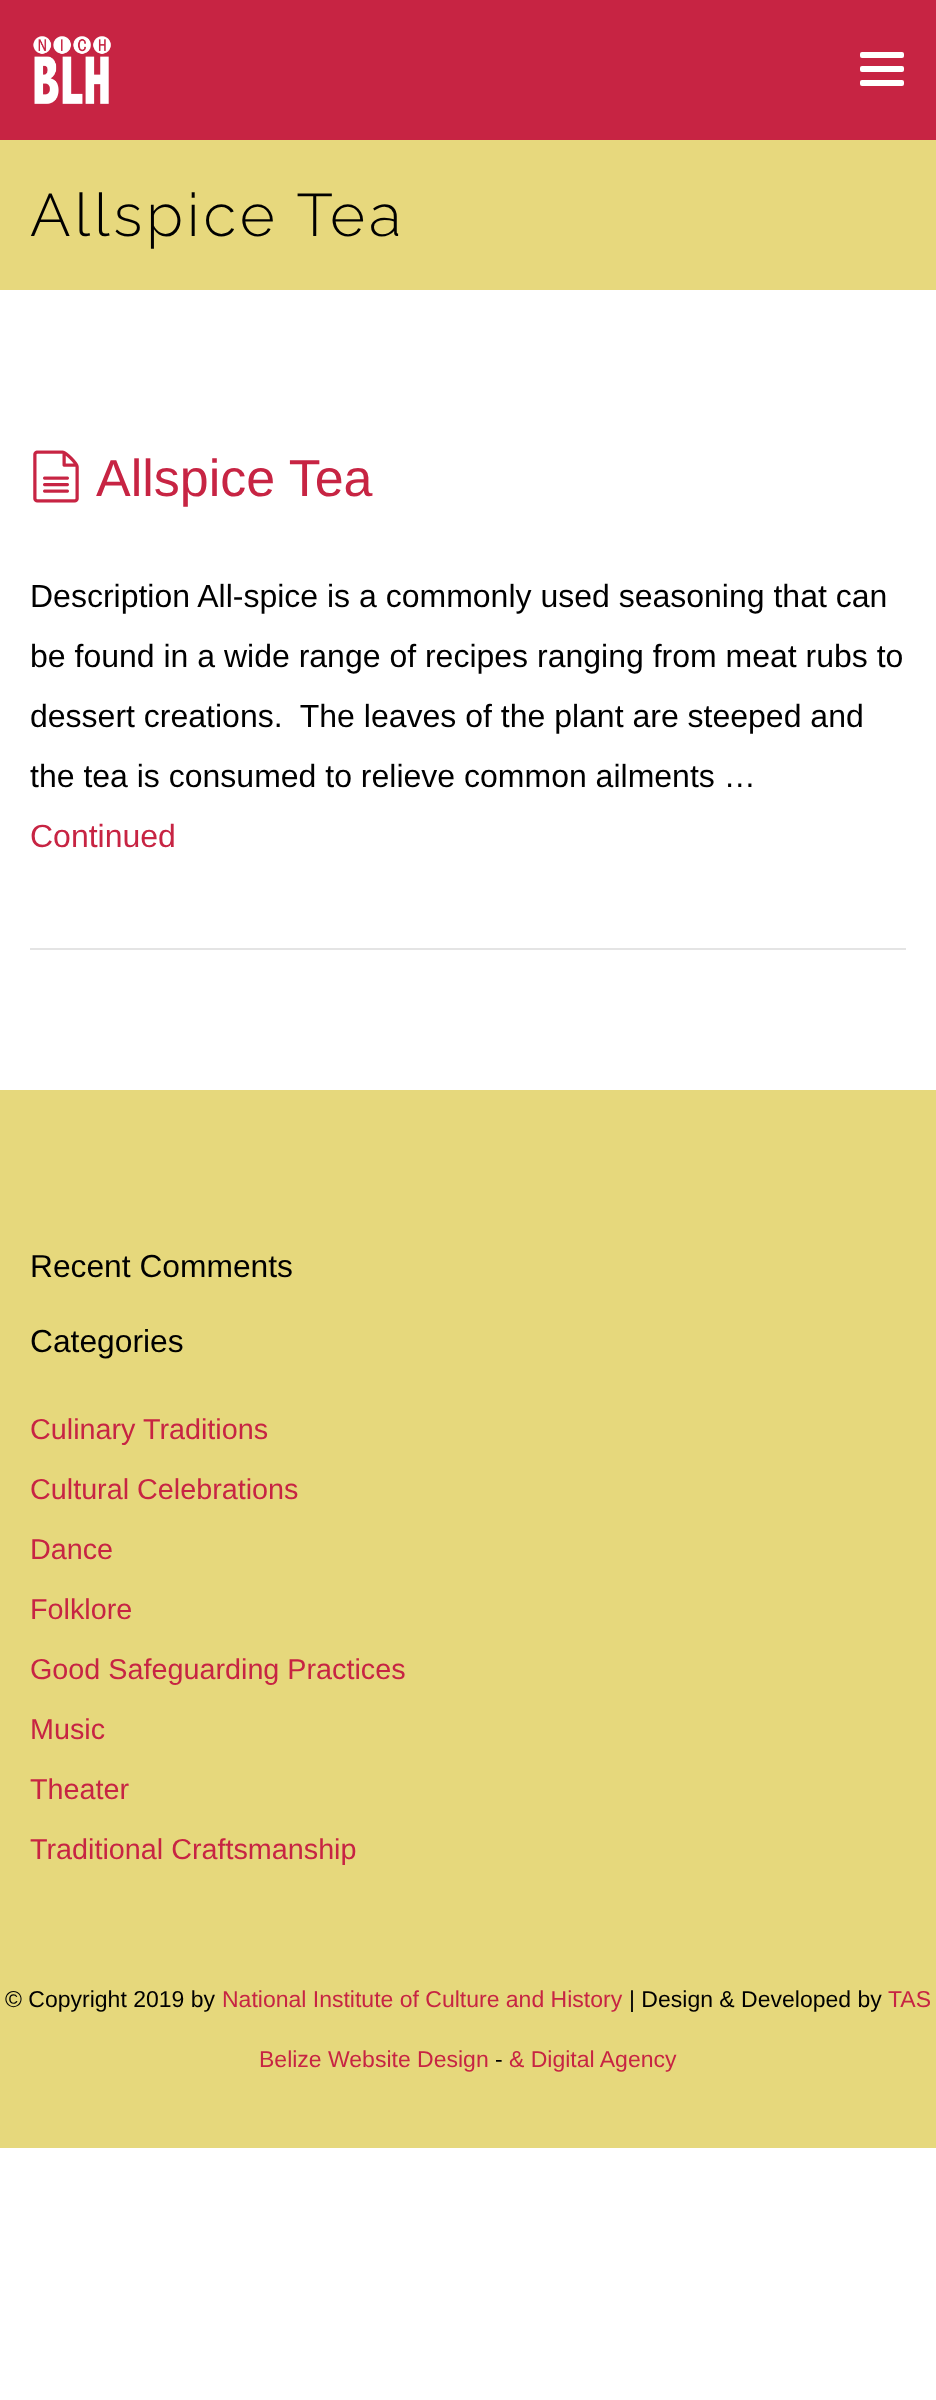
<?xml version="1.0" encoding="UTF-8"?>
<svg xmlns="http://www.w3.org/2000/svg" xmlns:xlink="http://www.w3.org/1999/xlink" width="936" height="2400">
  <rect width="100%" height="100%" fill="#ffffff" />
  <rect width="936" height="140" fill="#c72443" />
  <image x="33" y="36" width="78" height="68" xlink:href="image1.png" />
  <rect x="860" y="52" width="44" height="6" rx="2" fill="#ffffff" />
  <rect x="860" y="66" width="44" height="6" rx="2" fill="#ffffff" />
  <rect x="860" y="80" width="44" height="6" rx="2" fill="#ffffff" />
  <rect y="140" width="936" height="150" fill="#e7d87d" />
  <rect x="30" y="948" width="876" height="2" fill="#e4e4e4" />
  <image x="33" y="450" width="46" height="53" xlink:href="image2.png" />
  <rect y="1090" width="936" height="1058" fill="#e6d87c" />
  <text x="30" y="236" style="font-family: Raleway; font-size: 60px; font-weight: 100; letter-spacing: 4px; fill: #000000">Allspice Tea</text>
  <text x="96" y="496" style="font-family: Liberation Sans; font-size: 52px; fill: #c72443">Allspice Tea</text>
  <text x="30" y="607" style="font-family: Liberation Sans; font-size: 32px; fill: #000000">Description All-spice is a commonly used seasoning that can</text>
  <text x="30" y="667" style="font-family: Liberation Sans; font-size: 32px; fill: #000000">be found in a wide range of recipes ranging from meat rubs to</text>
  <text x="30" y="727" style="font-family: Liberation Sans; font-size: 32px; fill: #000000" xml:space="preserve">dessert creations.  The leaves of the plant are steeped and</text>
  <text x="30" y="787" style="font-family: Liberation Sans; font-size: 32px; fill: #000000">the tea is consumed to relieve common ailments …</text>
  <text x="30" y="847" style="font-family: Liberation Sans; font-size: 32px; fill: #c72443">Continued</text>
  <text x="30" y="1277" style="font-family: Liberation Sans; font-size: 31.75px; fill: #000000">Recent Comments</text>
  <text x="30" y="1352" style="font-family: Liberation Sans; font-size: 31.75px; fill: #000000">Categories</text>
  <text x="30" y="1439" style="font-family: Liberation Sans; font-size: 28.75px; fill: #c72443">Culinary Traditions</text>
  <text x="30" y="1499" style="font-family: Liberation Sans; font-size: 28.75px; fill: #c72443">Cultural Celebrations</text>
  <text x="30" y="1559" style="font-family: Liberation Sans; font-size: 28.75px; fill: #c72443">Dance</text>
  <text x="30" y="1619" style="font-family: Liberation Sans; font-size: 28.75px; fill: #c72443">Folklore</text>
  <text x="30" y="1679" style="font-family: Liberation Sans; font-size: 28.75px; fill: #c72443">Good Safeguarding Practices</text>
  <text x="30" y="1739" style="font-family: Liberation Sans; font-size: 28.75px; fill: #c72443">Music</text>
  <text x="30" y="1799" style="font-family: Liberation Sans; font-size: 28.75px; fill: #c72443">Theater</text>
  <text x="30" y="1859" style="font-family: Liberation Sans; font-size: 28.75px; fill: #c72443">Traditional Craftsmanship</text>
  <text x="5" y="2007" style="font-family: Liberation Sans; font-size: 23px; fill: #000000">© Copyright 2019 by</text>
  <text x="222" y="2007" style="font-family: Liberation Sans; font-size: 23px; fill: #c72443">National Institute of Culture and History</text>
  <text x="629" y="2007" style="font-family: Liberation Sans; font-size: 23px; fill: #000000">| Design &amp; Developed by</text>
  <text x="888" y="2007" style="font-family: Liberation Sans; font-size: 23px; fill: #c72443">TAS</text>
  <text x="259" y="2067" style="font-family: Liberation Sans; font-size: 23px; fill: #c72443">Belize Website Design</text>
  <text x="495" y="2067" style="font-family: Liberation Sans; font-size: 23px; fill: #000000">-</text>
  <text x="509" y="2067" style="font-family: Liberation Sans; font-size: 23px; fill: #c72443">&amp; Digital Agency</text>
</svg>
